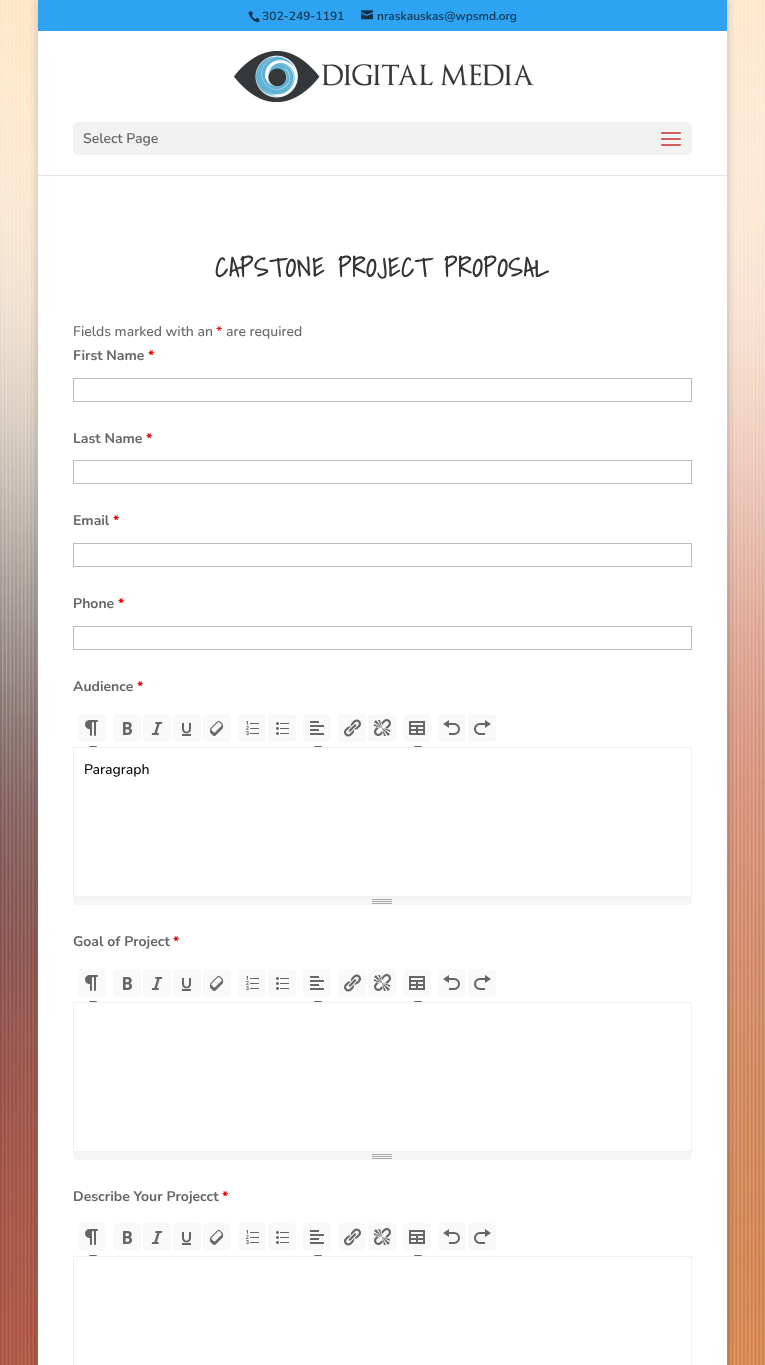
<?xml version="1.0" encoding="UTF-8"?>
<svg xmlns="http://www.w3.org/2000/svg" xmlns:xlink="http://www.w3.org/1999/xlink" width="765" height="1365">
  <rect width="100%" height="100%" fill="#ffffff" />
  <image x="0" y="0" width="765" height="1365" xlink:href="image1.png" />
  <rect x="38" width="689" height="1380" fill="#000000" fill-opacity="0.2" filter="blur(5px)" />
  <rect x="38" width="689" height="31" fill="#2ea3f2" />
  <image x="248" y="11" width="12" height="12" xlink:href="image2.png" />
  <image x="361" y="10" width="12" height="10" xlink:href="image3.png" />
  <rect x="38" y="175" width="689" height="1" fill="#e6e6e6" />
  <rect x="38" y="31" width="689" height="144" fill="#ffffff" />
  <image x="234" y="51" width="300" height="51" xlink:href="image4.png" />
  <rect x="73" y="122" width="619" height="33" rx="5" fill="#f2f2f2" />
  <image x="661" y="132" width="20" height="14" xlink:href="image5.png" />
  <rect x="38" y="176" width="689" height="1189" fill="#ffffff" />
  <rect x="73.5" y="378.5" width="618" height="23" fill="none" stroke="#bbbbbb" />
  <rect x="73.5" y="460.5" width="618" height="23" fill="none" stroke="#bbbbbb" />
  <rect x="73.5" y="543.5" width="618" height="23" fill="none" stroke="#bbbbbb" />
  <rect x="73.5" y="626.5" width="618" height="23" fill="none" stroke="#bbbbbb" />
  <rect x="78" y="714" width="28" height="28" rx="4" fill="#f9f9f9" />
  <image x="85" y="720" width="13" height="16" xlink:href="image6.png" />
  <path d="M 97 746 l -4 6 l -4 -6 z" fill="#666666" />
  <rect x="113" y="714" width="28" height="28" rx="4" fill="#f9f9f9" />
  <image x="123" y="722" width="9" height="13" xlink:href="image7.png" />
  <rect x="143" y="714" width="28" height="28" rx="4" fill="#f9f9f9" />
  <image x="151" y="722" width="12" height="13" xlink:href="image8.png" />
  <rect x="173" y="714" width="28" height="28" rx="4" fill="#f9f9f9" />
  <image x="182" y="723" width="9" height="13" xlink:href="image9.png" />
  <rect x="203" y="714" width="28" height="28" rx="4" fill="#f9f9f9" />
  <image x="210" y="720" width="13" height="16" xlink:href="image10.png" />
  <rect x="238" y="714" width="28" height="28" rx="4" fill="#f9f9f9" />
  <image x="246" y="721" width="13" height="15" xlink:href="image11.png" />
  <rect x="268" y="714" width="28" height="28" rx="4" fill="#f9f9f9" />
  <image x="276" y="722" width="13" height="13" xlink:href="image12.png" />
  <rect x="303" y="714" width="28" height="28" rx="4" fill="#f9f9f9" />
  <image x="310" y="721" width="14" height="14" xlink:href="image13.png" />
  <path d="M 322 746 l -4 6 l -4 -6 z" fill="#666666" />
  <rect x="338" y="714" width="28" height="28" rx="4" fill="#f9f9f9" />
  <image x="344" y="719" width="17" height="18" xlink:href="image14.png" />
  <rect x="368" y="714" width="28" height="28" rx="4" fill="#f9f9f9" />
  <image x="374" y="719" width="17" height="17" xlink:href="image15.png" />
  <rect x="403" y="714" width="28" height="28" rx="4" fill="#f9f9f9" />
  <image x="409" y="721" width="16" height="14" xlink:href="image16.png" />
  <path d="M 422 746 l -4 6 l -4 -6 z" fill="#666666" />
  <rect x="438" y="714" width="28" height="28" rx="4" fill="#f9f9f9" />
  <image x="443" y="720" width="17" height="15" xlink:href="image17.png" />
  <rect x="468" y="714" width="28" height="28" rx="4" fill="#f9f9f9" />
  <image x="474" y="720" width="17" height="15" xlink:href="image18.png" />
  <rect x="90" y="748" width="331" height="4" fill="#ffffff" />
  <rect x="73.5" y="747.5" width="618" height="149" fill="none" stroke="#f1f1f1" />
  <path d="M 73 897 h 619 v 4 c 0 2 -2 4 -4 4 h -611 c -2 0 -4 -2 -4 -4 z" fill="#f5f5f5" />
  <rect x="372" y="899" width="20" height="1" fill="#a9a9a9" />
  <rect x="372" y="901" width="20" height="1" fill="#a9a9a9" />
  <rect x="372" y="903" width="20" height="1" fill="#a9a9a9" />
  <rect x="78" y="969" width="28" height="28" rx="4" fill="#f9f9f9" />
  <image x="85" y="975" width="13" height="16" xlink:href="image6.png" />
  <path d="M 97 1001 l -4 6 l -4 -6 z" fill="#666666" />
  <rect x="113" y="969" width="28" height="28" rx="4" fill="#f9f9f9" />
  <image x="123" y="977" width="9" height="13" xlink:href="image7.png" />
  <rect x="143" y="969" width="28" height="28" rx="4" fill="#f9f9f9" />
  <image x="151" y="977" width="12" height="13" xlink:href="image8.png" />
  <rect x="173" y="969" width="28" height="28" rx="4" fill="#f9f9f9" />
  <image x="182" y="978" width="9" height="13" xlink:href="image9.png" />
  <rect x="203" y="969" width="28" height="28" rx="4" fill="#f9f9f9" />
  <image x="210" y="975" width="13" height="16" xlink:href="image10.png" />
  <rect x="238" y="969" width="28" height="28" rx="4" fill="#f9f9f9" />
  <image x="246" y="976" width="13" height="15" xlink:href="image11.png" />
  <rect x="268" y="969" width="28" height="28" rx="4" fill="#f9f9f9" />
  <image x="276" y="977" width="13" height="13" xlink:href="image12.png" />
  <rect x="303" y="969" width="28" height="28" rx="4" fill="#f9f9f9" />
  <image x="310" y="976" width="14" height="14" xlink:href="image13.png" />
  <path d="M 322 1001 l -4 6 l -4 -6 z" fill="#666666" />
  <rect x="338" y="969" width="28" height="28" rx="4" fill="#f9f9f9" />
  <image x="344" y="974" width="17" height="18" xlink:href="image14.png" />
  <rect x="368" y="969" width="28" height="28" rx="4" fill="#f9f9f9" />
  <image x="374" y="974" width="17" height="17" xlink:href="image15.png" />
  <rect x="403" y="969" width="28" height="28" rx="4" fill="#f9f9f9" />
  <image x="409" y="976" width="16" height="14" xlink:href="image16.png" />
  <path d="M 422 1001 l -4 6 l -4 -6 z" fill="#666666" />
  <rect x="438" y="969" width="28" height="28" rx="4" fill="#f9f9f9" />
  <image x="443" y="975" width="17" height="15" xlink:href="image17.png" />
  <rect x="468" y="969" width="28" height="28" rx="4" fill="#f9f9f9" />
  <image x="474" y="975" width="17" height="15" xlink:href="image18.png" />
  <rect x="90" y="1003" width="331" height="4" fill="#ffffff" />
  <rect x="73.5" y="1002.5" width="618" height="149" fill="none" stroke="#f1f1f1" />
  <path d="M 73 1152 h 619 v 4 c 0 2 -2 4 -4 4 h -611 c -2 0 -4 -2 -4 -4 z" fill="#f5f5f5" />
  <rect x="372" y="1154" width="20" height="1" fill="#a9a9a9" />
  <rect x="372" y="1156" width="20" height="1" fill="#a9a9a9" />
  <rect x="372" y="1158" width="20" height="1" fill="#a9a9a9" />
  <rect x="78" y="1223" width="28" height="28" rx="4" fill="#f9f9f9" />
  <image x="85" y="1229" width="13" height="16" xlink:href="image6.png" />
  <path d="M 97 1255 l -4 6 l -4 -6 z" fill="#666666" />
  <rect x="113" y="1223" width="28" height="28" rx="4" fill="#f9f9f9" />
  <image x="123" y="1231" width="9" height="13" xlink:href="image7.png" />
  <rect x="143" y="1223" width="28" height="28" rx="4" fill="#f9f9f9" />
  <image x="151" y="1231" width="12" height="13" xlink:href="image8.png" />
  <rect x="173" y="1223" width="28" height="28" rx="4" fill="#f9f9f9" />
  <image x="182" y="1232" width="9" height="13" xlink:href="image9.png" />
  <rect x="203" y="1223" width="28" height="28" rx="4" fill="#f9f9f9" />
  <image x="210" y="1229" width="13" height="16" xlink:href="image10.png" />
  <rect x="238" y="1223" width="28" height="28" rx="4" fill="#f9f9f9" />
  <image x="246" y="1230" width="13" height="15" xlink:href="image11.png" />
  <rect x="268" y="1223" width="28" height="28" rx="4" fill="#f9f9f9" />
  <image x="276" y="1231" width="13" height="13" xlink:href="image12.png" />
  <rect x="303" y="1223" width="28" height="28" rx="4" fill="#f9f9f9" />
  <image x="310" y="1230" width="14" height="14" xlink:href="image13.png" />
  <path d="M 322 1255 l -4 6 l -4 -6 z" fill="#666666" />
  <rect x="338" y="1223" width="28" height="28" rx="4" fill="#f9f9f9" />
  <image x="344" y="1228" width="17" height="18" xlink:href="image14.png" />
  <rect x="368" y="1223" width="28" height="28" rx="4" fill="#f9f9f9" />
  <image x="374" y="1228" width="17" height="17" xlink:href="image15.png" />
  <rect x="403" y="1223" width="28" height="28" rx="4" fill="#f9f9f9" />
  <image x="409" y="1230" width="16" height="14" xlink:href="image16.png" />
  <path d="M 422 1255 l -4 6 l -4 -6 z" fill="#666666" />
  <rect x="438" y="1223" width="28" height="28" rx="4" fill="#f9f9f9" />
  <image x="443" y="1229" width="17" height="15" xlink:href="image17.png" />
  <rect x="468" y="1223" width="28" height="28" rx="4" fill="#f9f9f9" />
  <image x="474" y="1229" width="17" height="15" xlink:href="image18.png" />
  <rect x="90" y="1257" width="331" height="4" fill="#ffffff" />
  <rect x="73.5" y="1256.5" width="618" height="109" fill="none" stroke="#f1f1f1" />
  <text x="262" y="20" style="font-family: 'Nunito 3'; font-size: 12px; font-weight: 200; fill: #0e3149">302-249-1191</text>
  <text x="377" y="20" style="font-family: 'Nunito 3'; font-size: 12px; font-weight: 200; fill: #0e3149">nraskauskas@wpsmd.org</text>
  <text x="83" y="143" style="font-family: 'Nunito 3'; font-size: 14px; font-weight: 200; fill: #666666">Select Page</text>
  <text x="215" y="277" style="font-family: Shadows Into Light; font-size: 26px; font-weight: bold; letter-spacing: 1px; fill: #333333">CAPSTONE PROJECT PROPOSAL</text>
  <text x="73" y="336" style="font-family: Nunito; font-size: 14px; font-weight: 200; fill: #666666">Fields marked with an</text>
  <text x="216" y="336" style="font-family: Nunito; font-size: 14px; font-weight: 200; fill: #e80000">*</text>
  <text x="226" y="336" style="font-family: Nunito; font-size: 14px; font-weight: 200; fill: #666666">are required</text>
  <text x="73" y="360" style="font-family: 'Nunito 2'; font-size: 14px; font-weight: 200; fill: #666666">First Name</text>
  <text x="148" y="360" style="font-family: 'Nunito 2'; font-size: 14px; font-weight: 200; fill: #e80000">*</text>
  <text x="73" y="443" style="font-family: 'Nunito 2'; font-size: 14px; font-weight: 200; fill: #666666">Last Name</text>
  <text x="146" y="443" style="font-family: 'Nunito 2'; font-size: 14px; font-weight: 200; fill: #e80000">*</text>
  <text x="73" y="525" style="font-family: 'Nunito 2'; font-size: 14px; font-weight: 200; fill: #666666">Email</text>
  <text x="113" y="525" style="font-family: 'Nunito 2'; font-size: 14px; font-weight: 200; fill: #e80000">*</text>
  <text x="73" y="608" style="font-family: 'Nunito 2'; font-size: 14px; font-weight: 200; fill: #666666">Phone</text>
  <text x="118" y="608" style="font-family: 'Nunito 2'; font-size: 14px; font-weight: 200; fill: #e80000">*</text>
  <text x="73" y="691" style="font-family: 'Nunito 2'; font-size: 14px; font-weight: 200; fill: #666666">Audience</text>
  <text x="137" y="691" style="font-family: 'Nunito 2'; font-size: 14px; font-weight: 200; fill: #e80000">*</text>
  <text x="84" y="774" style="font-family: Nunito; font-size: 14px; font-weight: 200; fill: #000000">Paragraph</text>
  <text x="73" y="946" style="font-family: 'Nunito 2'; font-size: 14px; font-weight: 200; fill: #666666">Goal of Project</text>
  <text x="173" y="946" style="font-family: 'Nunito 2'; font-size: 14px; font-weight: 200; fill: #e80000">*</text>
  <text x="73" y="1201" style="font-family: 'Nunito 2'; font-size: 14px; font-weight: 200; fill: #666666">Describe Your Projecct</text>
  <text x="222" y="1201" style="font-family: 'Nunito 2'; font-size: 14px; font-weight: 200; fill: #e80000">*</text>
</svg>
